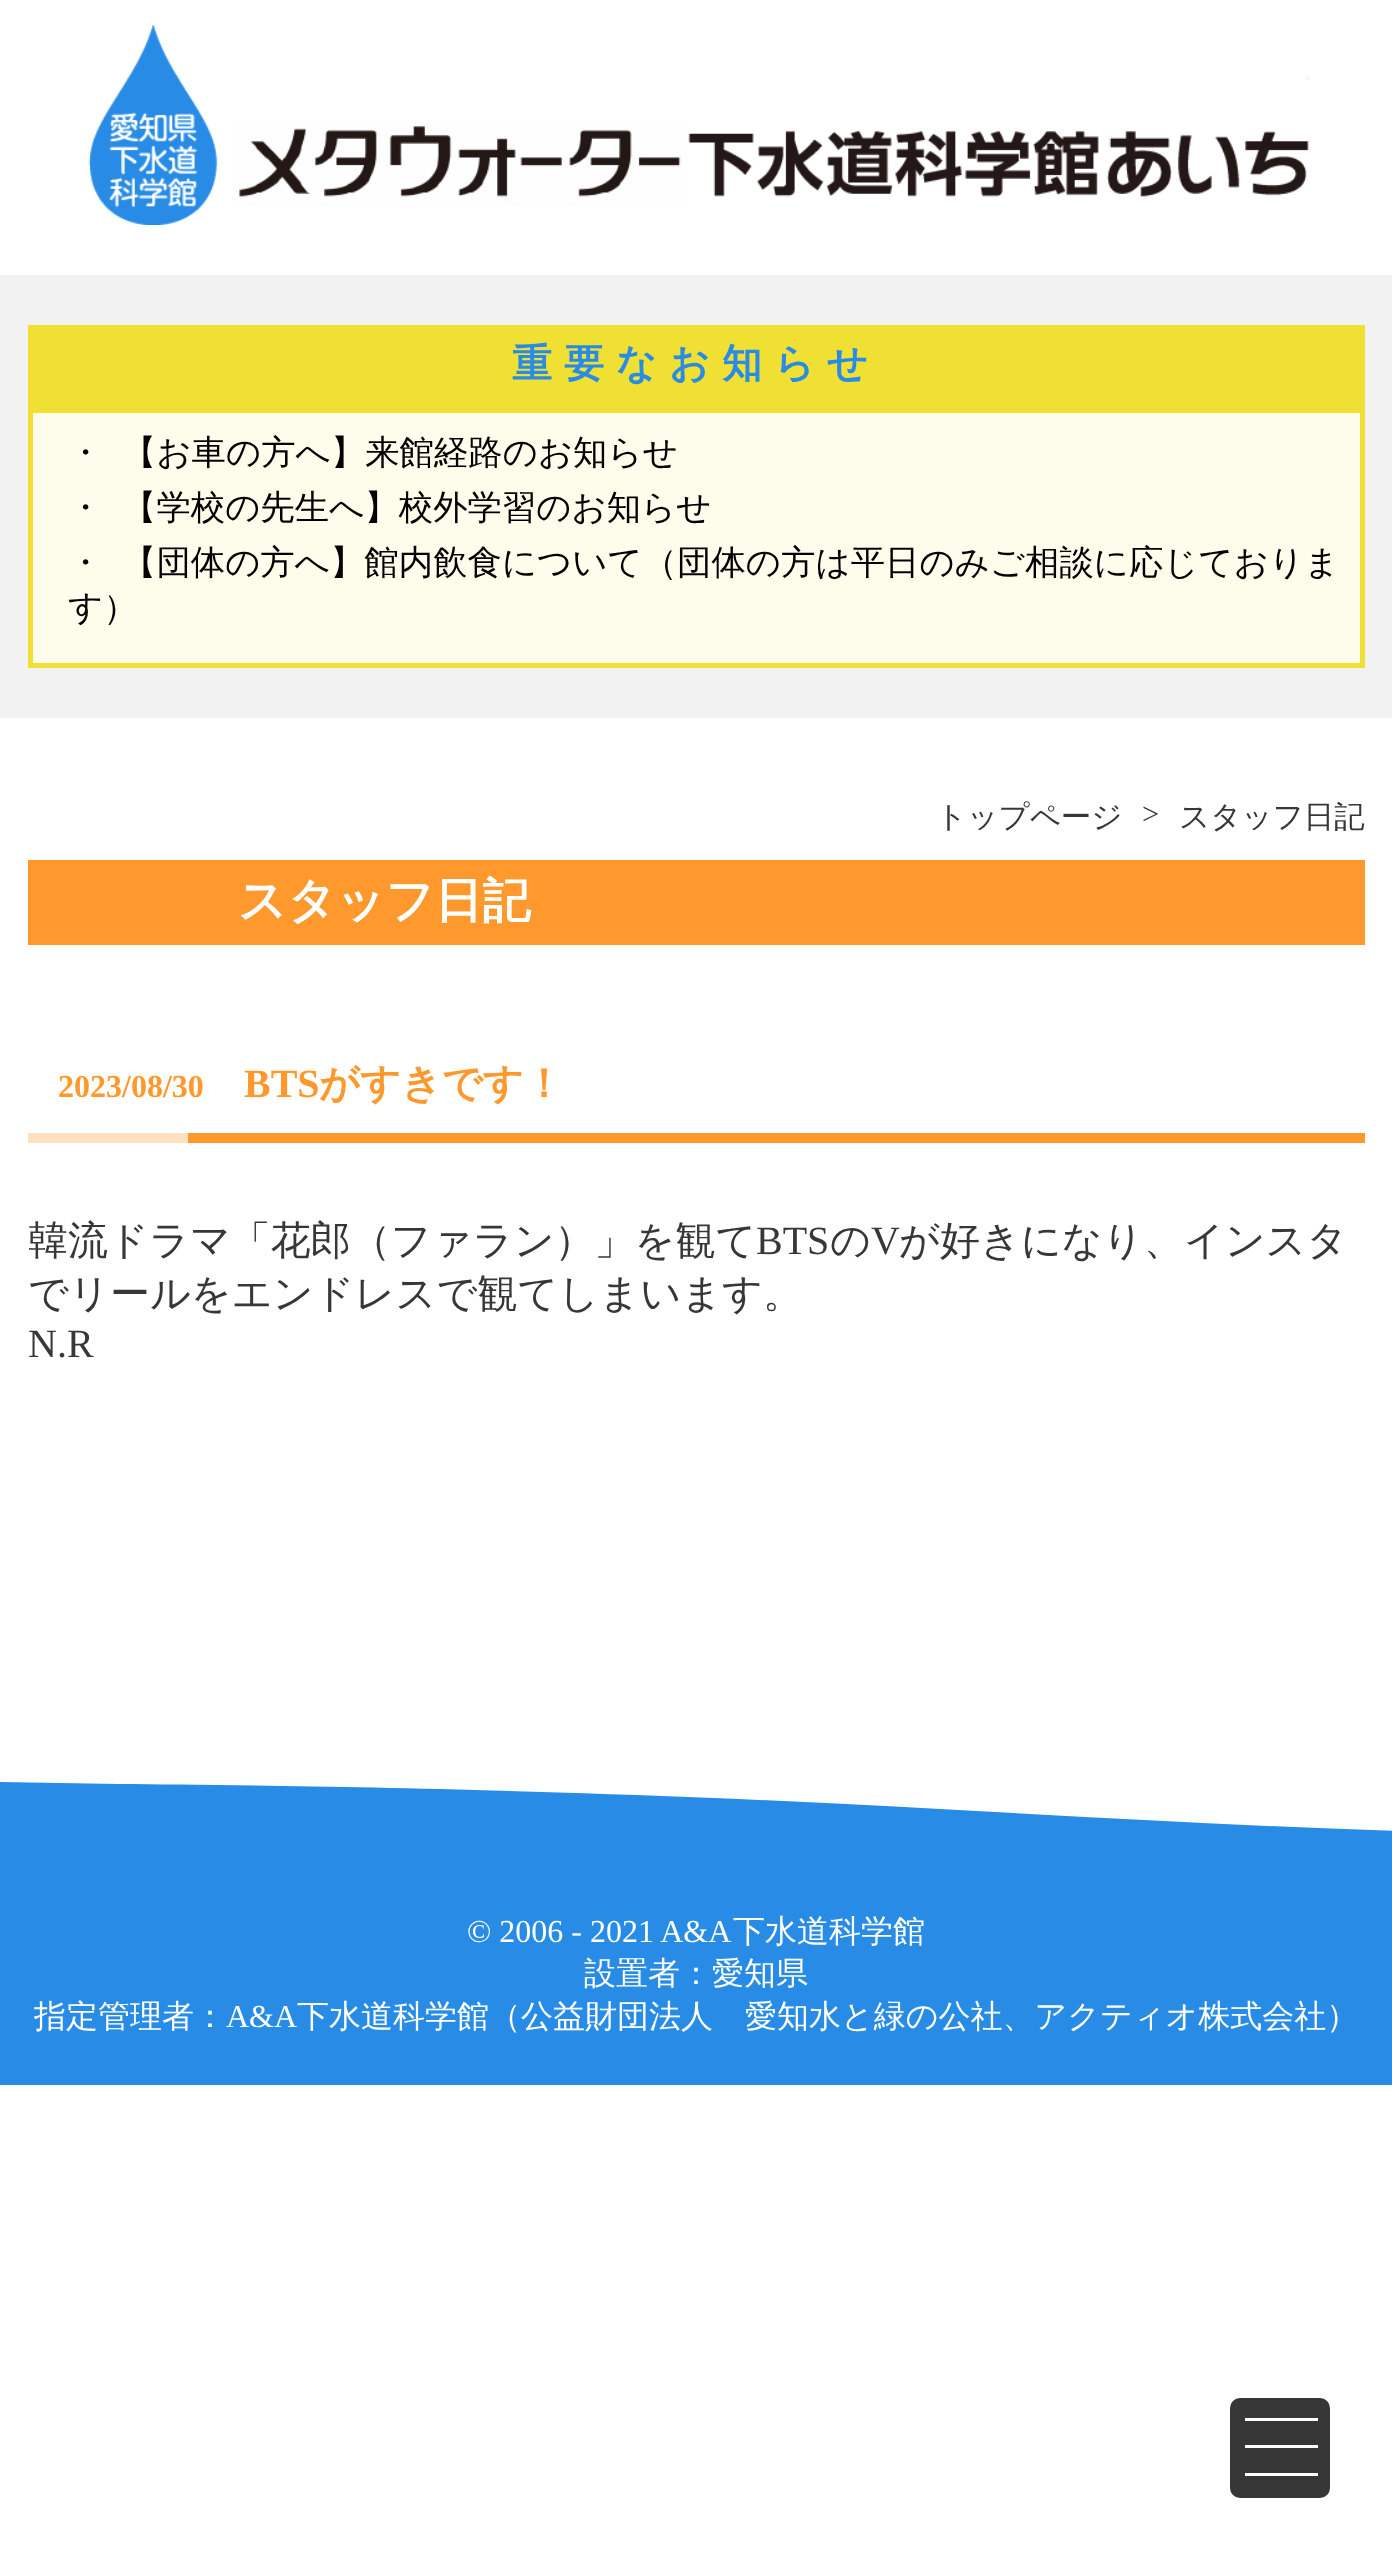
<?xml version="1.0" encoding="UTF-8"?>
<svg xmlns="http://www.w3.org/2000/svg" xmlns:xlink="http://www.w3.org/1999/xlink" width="1392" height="2560">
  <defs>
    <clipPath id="clip1"><rect y="1768" width="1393" height="100" /></clipPath>
  </defs>
  <rect width="100%" height="100%" fill="#ffffff" />
  <image x="88" y="25" width="1222" height="200" xlink:href="image1.png" />
  <rect y="275" width="1392" height="443" fill="#f2f2f2" />
  <rect x="28" y="325" width="1337" height="83" fill="#f1e034" />
  <rect x="30.5" y="410.5" width="1332" height="255" fill="#fefceb" stroke="#f1e034" stroke-width="5" />
  <rect x="28" y="860" width="1337" height="85" fill="#ff982d" />
  <rect x="28" y="1133" width="160" height="10" fill="#ffe1c2" />
  <rect x="188" y="1133" width="1177" height="10" fill="#ff982d" />
  <g clip-path="url(#clip1)">
    <path d="M 0 1782 l 119 2 c 119 1 358 4 595 14 c 238 10 476 27 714 34 c 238 8 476 6 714 7 c 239 2 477 8 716 0 c 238 -7 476 -28 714 -39 c 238 -12 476 -13 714 -10 c 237 4 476 13 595 18 l 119 4 v 58 h -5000 z" fill="#288ce7" />
  </g>
  <rect y="1868" width="1392" height="217" fill="#288ce7" />
  <rect x="1230" y="2398" width="100" height="100" rx="10" fill="#373737" />
  <rect x="1245" y="2418" width="73" height="3" fill="#ffffff" />
  <rect x="1245" y="2445" width="73" height="3" fill="#ffffff" />
  <rect x="1245" y="2473" width="73" height="3" fill="#ffffff" />
  <text x="512" y="377" style="font-family: WenQuanYi Zen Hei; font-size: 40px; font-weight: bold; letter-spacing: 12px; fill: #288ce7">重要なお知らせ</text>
  <text x="68" y="464" style="font-family: WenQuanYi Zen Hei; font-size: 34.4px; font-weight: 500; fill: #000000">・</text>
  <text x="122" y="464" style="font-family: WenQuanYi Zen Hei; font-size: 34.4px; font-weight: 500; fill: #000000">【お車の方へ】来館経路のお知らせ</text>
  <text x="68" y="519" style="font-family: WenQuanYi Zen Hei; font-size: 34.4px; font-weight: 500; fill: #000000">・</text>
  <text x="122" y="519" style="font-family: WenQuanYi Zen Hei; font-size: 34.4px; font-weight: 500; fill: #000000">【学校の先生へ】校外学習のお知らせ</text>
  <text x="68" y="574" style="font-family: WenQuanYi Zen Hei; font-size: 34.4px; font-weight: 500; fill: #000000">・</text>
  <text x="122" y="574" style="font-family: WenQuanYi Zen Hei; font-size: 34.4px; font-weight: 500; fill: #000000">【団体の方へ】館内飲食について（団体の方は平日のみご相談に応じておりま</text>
  <text x="68" y="619" style="font-family: WenQuanYi Zen Hei; font-size: 34.4px; font-weight: 500; fill: #000000">す）</text>
  <text x="936" y="827" style="font-family: WenQuanYi Zen Hei; font-size: 30.5px; font-weight: 500; fill: #373737">トップページ</text>
  <text x="1142" y="824" style="font-family: Liberation Serif; font-size: 30.5px; fill: #373737">&gt;</text>
  <text x="1179" y="827" style="font-family: WenQuanYi Zen Hei; font-size: 30.5px; font-weight: 500; fill: #373737">スタッフ日記</text>
  <text x="238" y="917" style="font-family: WenQuanYi Zen Hei; font-size: 48px; font-weight: bold; fill: #ffffff">スタッフ日記</text>
  <text x="58" y="1097" style="font-family: Liberation Serif; font-size: 32px; font-weight: bold; fill: #ff982d">2023/08/30</text>
  <text x="244" y="1097" style="font-family: Liberation Serif; font-size: 40px; font-weight: bold; fill: #ff982d">BTS</text>
  <text x="319" y="1097" style="font-family: WenQuanYi Zen Hei; font-size: 40px; font-weight: bold; fill: #ff982d">がすきです！</text>
  <text x="28" y="1254" style="font-family: WenQuanYi Zen Hei; font-size: 40px; font-weight: 500; fill: #373737">韓流ドラマ「花郎（ファラン）」を観て</text>
  <text x="756" y="1254" style="font-family: Liberation Serif; font-size: 40px; fill: #373737">BTS</text>
  <text x="830" y="1254" style="font-family: WenQuanYi Zen Hei; font-size: 40px; font-weight: 500; fill: #373737">の</text>
  <text x="871" y="1254" style="font-family: Liberation Serif; font-size: 40px; fill: #373737">V</text>
  <text x="899" y="1254" style="font-family: WenQuanYi Zen Hei; font-size: 40px; font-weight: 500; fill: #373737">が好きになり、インスタ</text>
  <text x="28" y="1307" style="font-family: WenQuanYi Zen Hei; font-size: 40px; font-weight: 500; fill: #373737">でリールをエンドレスで観てしまいます。</text>
  <text x="28" y="1357" style="font-family: Liberation Serif; font-size: 40px; fill: #373737">N.R</text>
  <text x="467" y="1942" style="font-family: Liberation Serif; font-size: 32px; fill: #ffffff">© 2006 - 2021 A&amp;A</text>
  <text x="733" y="1942" style="font-family: WenQuanYi Zen Hei; font-size: 32px; font-weight: 500; fill: #ffffff">下水道科学館</text>
  <text x="584" y="1984" style="font-family: WenQuanYi Zen Hei; font-size: 32px; font-weight: 500; fill: #ffffff">設置者：愛知県</text>
  <text x="34" y="2027" style="font-family: WenQuanYi Zen Hei; font-size: 32px; font-weight: 500; fill: #ffffff">指定管理者：</text>
  <text x="226" y="2027" style="font-family: Liberation Serif; font-size: 32px; fill: #ffffff">A&amp;A</text>
  <text x="297" y="2027" style="font-family: WenQuanYi Zen Hei; font-size: 32px; font-weight: 500; fill: #ffffff">下水道科学館（公益財団法人　愛知水と緑の公社、アクティオ株式会社）</text>
</svg>
